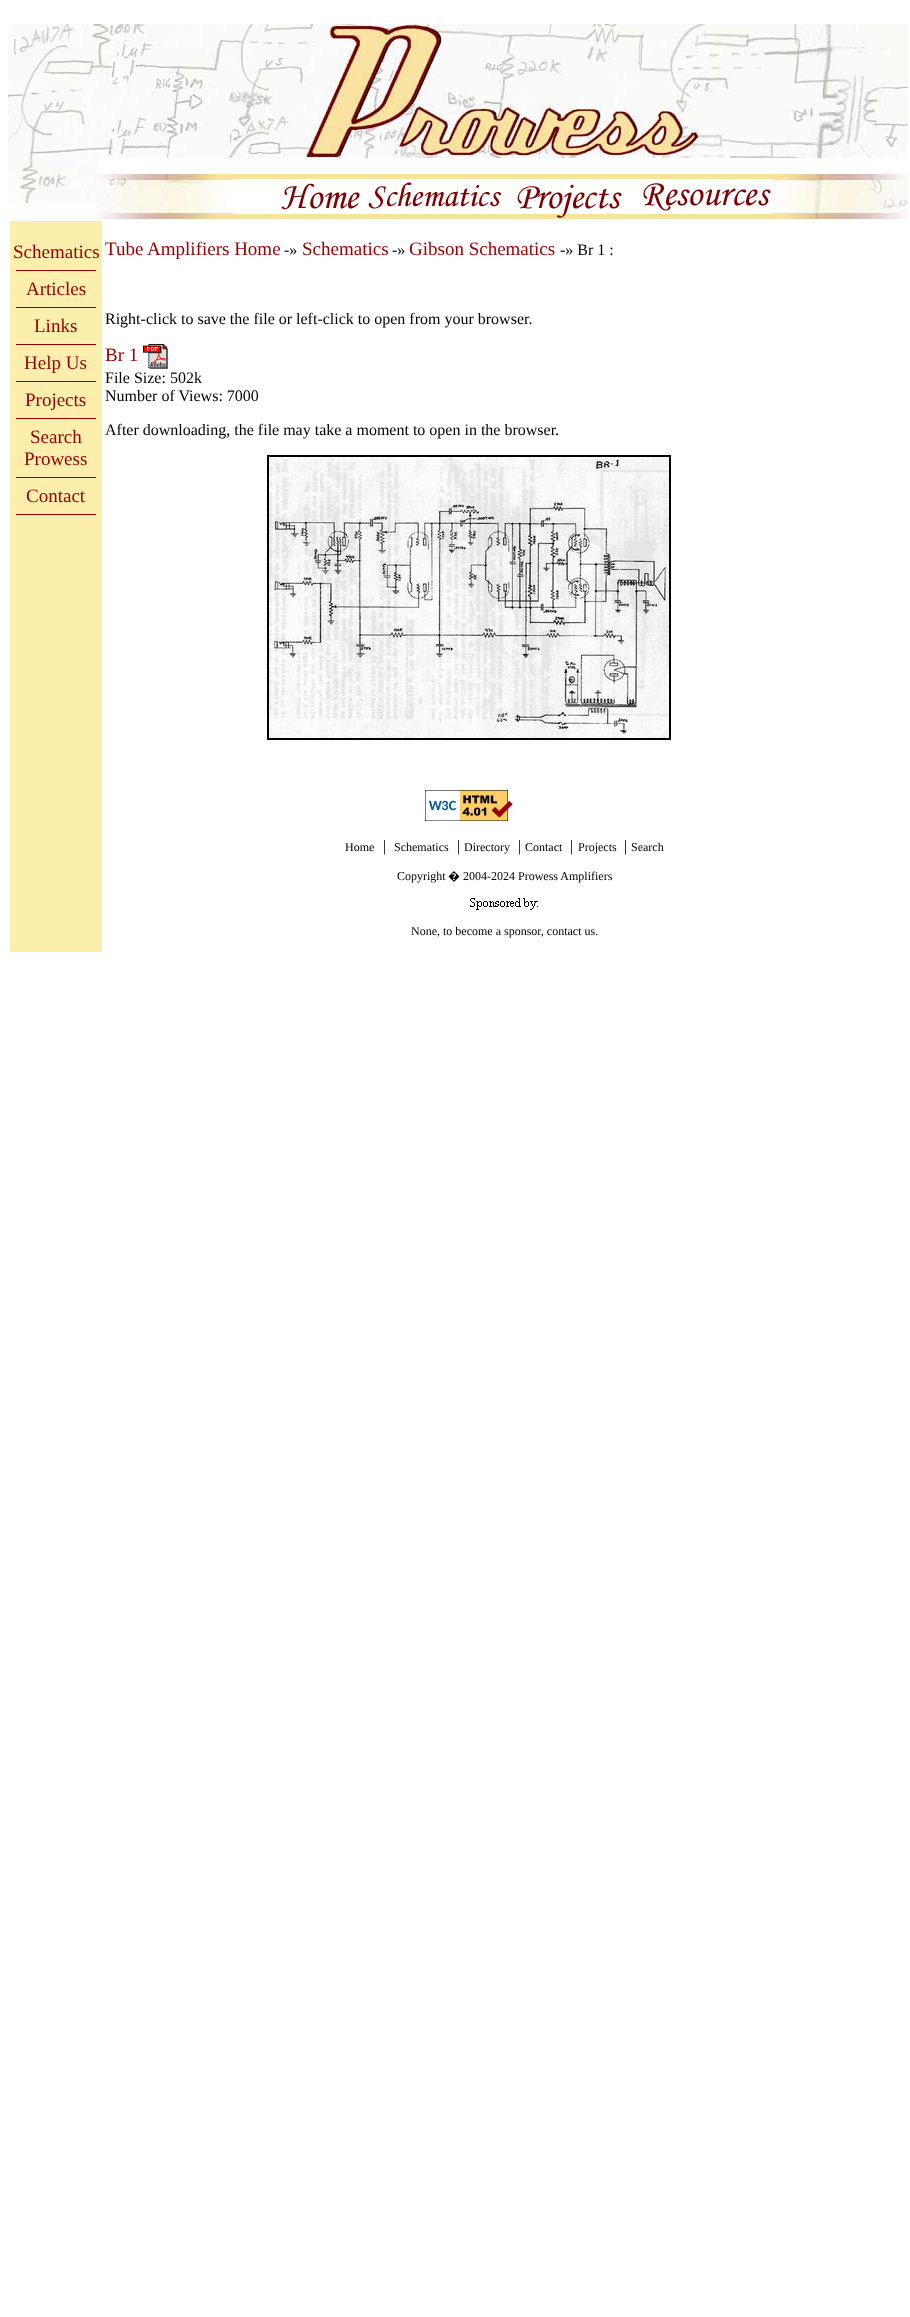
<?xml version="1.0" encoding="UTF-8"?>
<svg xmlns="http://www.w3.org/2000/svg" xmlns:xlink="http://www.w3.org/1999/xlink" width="910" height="2317">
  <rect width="100%" height="100%" fill="#ffffff" />
  <image x="8" y="24" width="90" height="179" xlink:href="image1.png" />
  <image x="98" y="24" width="810" height="134" xlink:href="image2.png" />
  <image x="98" y="174" width="135" height="45" xlink:href="image3.png" />
  <image x="233" y="174" width="135" height="45" xlink:href="image4.png" />
  <image x="368" y="174" width="135" height="45" xlink:href="image5.png" />
  <image x="503" y="174" width="135" height="45" xlink:href="image6.png" />
  <image x="638" y="174" width="135" height="45" xlink:href="image7.png" />
  <image x="773" y="174" width="135" height="45" xlink:href="image8.png" />
  <rect x="10" y="221" width="92" height="731" fill="#fceeac" />
  <rect x="16" y="270" width="80" height="1" fill="#990000" />
  <rect x="16" y="307" width="80" height="1" fill="#990000" />
  <rect x="16" y="344" width="80" height="1" fill="#990000" />
  <rect x="16" y="381" width="80" height="1" fill="#990000" />
  <rect x="16" y="418" width="80" height="1" fill="#990000" />
  <rect x="16" y="477" width="80" height="1" fill="#990000" />
  <rect x="16" y="514" width="80" height="1" fill="#990000" />
  <image x="143" y="344" width="25" height="25" xlink:href="image9.png" />
  <rect x="268" y="456" width="402" height="283" fill="none" stroke="#000000" stroke-width="2" />
  <image x="269" y="457" width="400" height="281" xlink:href="image10.png" />
  <image x="425" y="790" width="88" height="31" xlink:href="image11.png" />
  <image x="470" y="898" width="68" height="12" xlink:href="image12.png" />
  <text x="13" y="258" style="font-family: Liberation Serif; font-size: 19px; fill: #990000">Schematics</text>
  <text x="26" y="295" style="font-family: Liberation Serif; font-size: 19px; fill: #990000">Articles</text>
  <text x="34" y="332" style="font-family: Liberation Serif; font-size: 19px; fill: #990000">Links</text>
  <text x="24" y="369" style="font-family: Liberation Serif; font-size: 19px; fill: #990000">Help Us</text>
  <text x="25" y="406" style="font-family: Liberation Serif; font-size: 19px; fill: #990000">Projects</text>
  <text x="30" y="443" style="font-family: Liberation Serif; font-size: 19px; fill: #990000">Search</text>
  <text x="24" y="465" style="font-family: Liberation Serif; font-size: 19px; fill: #990000">Prowess</text>
  <text x="26" y="502" style="font-family: Liberation Serif; font-size: 19px; fill: #990000">Contact</text>
  <text x="105" y="255" style="font-family: Liberation Serif; font-size: 19px; fill: #990000">Tube Amplifiers Home</text>
  <text x="284" y="255" style="font-family: Liberation Serif; font-size: 16px; fill: #000000">-»</text>
  <text x="302" y="255" style="font-family: Liberation Serif; font-size: 19px; fill: #990000">Schematics</text>
  <text x="392" y="255" style="font-family: Liberation Serif; font-size: 16px; fill: #000000">-»</text>
  <text x="409" y="255" style="font-family: Liberation Serif; font-size: 19px; fill: #990000">Gibson Schematics</text>
  <text x="560" y="255" style="font-family: Liberation Serif; font-size: 16px; fill: #000000">-» Br 1 :</text>
  <text x="105" y="324" style="font-family: Liberation Serif; font-size: 16px; fill: #000000">Right-click to save the file or left-click to open from your browser.</text>
  <text x="105" y="361" style="font-family: Liberation Serif; font-size: 19px; fill: #990000">Br 1</text>
  <text x="105" y="383" style="font-family: Liberation Serif; font-size: 16px; fill: #000000">File Size: 502k</text>
  <text x="105" y="401" style="font-family: Liberation Serif; font-size: 16px; fill: #000000">Number of Views: 7000</text>
  <text x="105" y="435" style="font-family: Liberation Serif; font-size: 16px; fill: #000000">After downloading, the file may take a moment to open in the browser.</text>
  <text x="345" y="851" style="font-family: Liberation Serif; font-size: 12px; fill: #000000">Home</text>
  <text x="383" y="851" style="font-family: Liberation Serif; font-size: 16px; fill: #000000">|</text>
  <text x="394" y="851" style="font-family: Liberation Serif; font-size: 12px; fill: #000000">Schematics</text>
  <text x="457" y="851" style="font-family: Liberation Serif; font-size: 16px; fill: #000000">|</text>
  <text x="464" y="851" style="font-family: Liberation Serif; font-size: 12px; fill: #000000">Directory</text>
  <text x="518" y="851" style="font-family: Liberation Serif; font-size: 16px; fill: #000000">|</text>
  <text x="525" y="851" style="font-family: Liberation Serif; font-size: 12px; fill: #000000">Contact</text>
  <text x="570" y="851" style="font-family: Liberation Serif; font-size: 16px; fill: #000000">|</text>
  <text x="578" y="851" style="font-family: Liberation Serif; font-size: 12px; fill: #000000">Projects</text>
  <text x="624" y="851" style="font-family: Liberation Serif; font-size: 16px; fill: #000000">|</text>
  <text x="631" y="851" style="font-family: Liberation Serif; font-size: 12px; fill: #000000">Search</text>
  <text x="397" y="880" style="font-family: Liberation Serif; font-size: 12px; fill: #000000">Copyright</text>
  <text x="448" y="880" style="font-family: Noto Sans; font-size: 12px; fill: #000000">�</text>
  <text x="463" y="880" style="font-family: Liberation Serif; font-size: 12px; fill: #000000">2004-2024 Prowess Amplifiers</text>
  <text x="411" y="935" style="font-family: Liberation Serif; font-size: 12px; fill: #000000">None, to become a sponsor, contact us.</text>
</svg>
